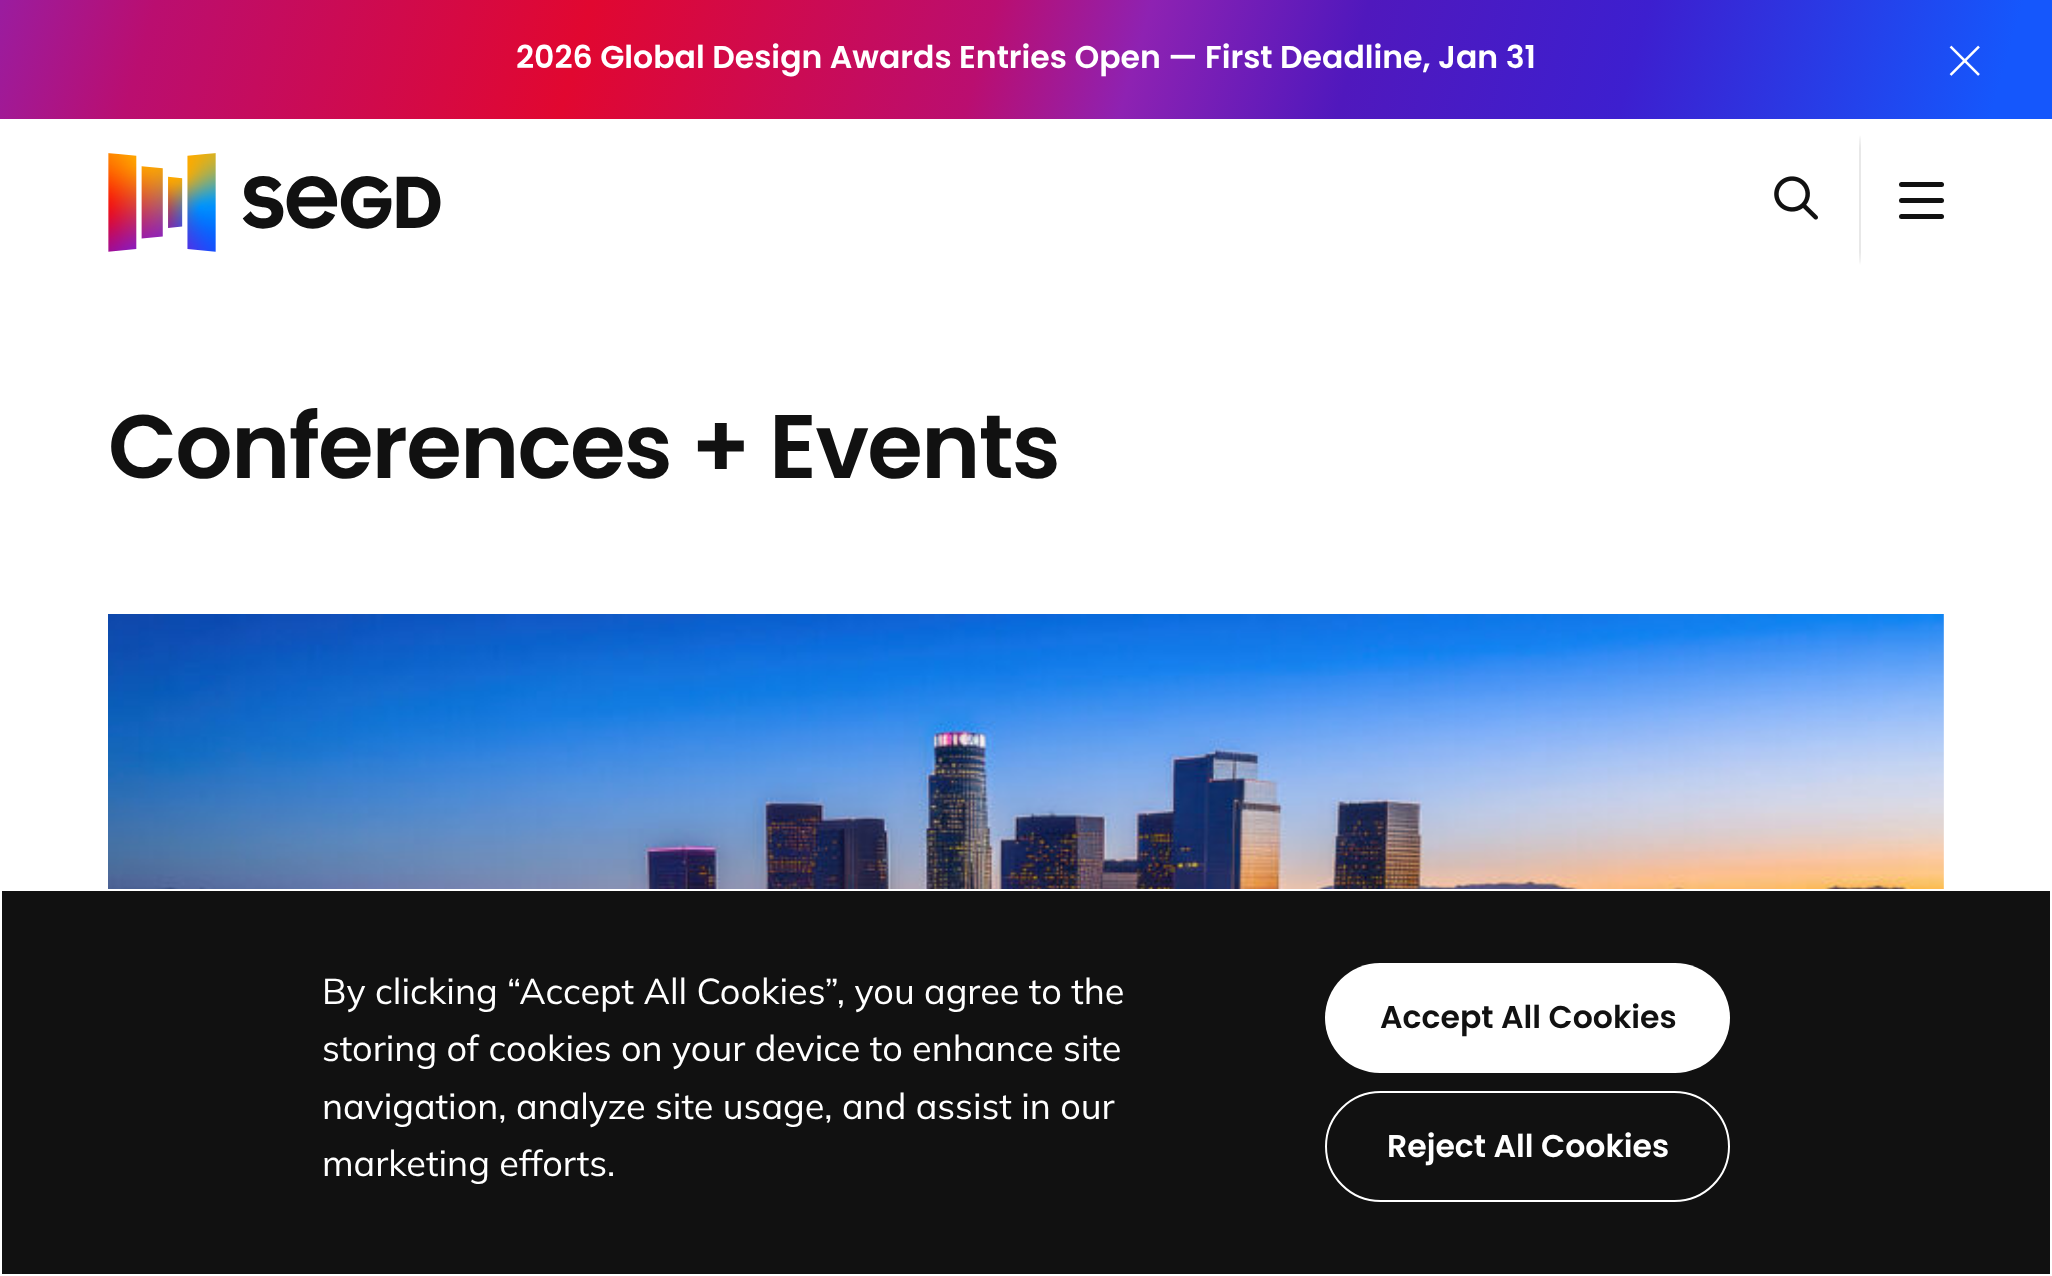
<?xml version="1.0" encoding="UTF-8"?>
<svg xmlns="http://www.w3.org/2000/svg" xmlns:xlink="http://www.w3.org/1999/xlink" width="2052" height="1276">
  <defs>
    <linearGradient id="g1" gradientUnits="userSpaceOnUse" x1="-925" y1="-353" x2="1951" y2="472"><stop offset="0.28" stop-color="#5018bd" /><stop offset="0.31" stop-color="#8e22b2" /><stop offset="0.38" stop-color="#ba0e70" /><stop offset="0.52" stop-color="#e10730" /><stop offset="0.65" stop-color="#ba0e70" /><stop offset="0.7" stop-color="#8e22b2" /><stop offset="0.77" stop-color="#5018bd" /><stop offset="0.86" stop-color="#3d1fcf" /><stop offset="0.98" stop-color="#1557fc" /></linearGradient>
    <linearGradient id="g2" gradientUnits="userSpaceOnUse" x1="1860" y1="135" x2="1860" y2="265"><stop offset="0" stop-color="#ffffff" /><stop offset="0.03" stop-color="#f4f4f4" /><stop offset="0.1" stop-color="#e8e8e8" /><stop offset="0.9" stop-color="#e8e8e8" /><stop offset="0.97" stop-color="#f4f4f4" /><stop offset="1" stop-color="#ffffff" /></linearGradient>
  </defs>
  <rect width="100%" height="100%" fill="#ffffff" />
  <rect width="2052" height="119" fill="url(#g1)" />
  <image x="1949" y="45" width="31" height="31" xlink:href="image1.png" />
  <image x="108" y="153" width="333" height="99" xlink:href="image2.png" />
  <image x="1774" y="176" width="44" height="44" xlink:href="image3.png" />
  <rect x="1859" y="135" width="2" height="131" fill="url(#g2)" />
  <rect x="1899" y="198" width="45" height="5" rx="2.5" fill="#111111" />
  <rect x="1899" y="182" width="45" height="5" rx="2.5" fill="#111111" />
  <rect x="1899" y="214" width="45" height="5" rx="2.5" fill="#111111" />
  <image x="108" y="614" width="1836" height="275" xlink:href="image4.png" />
  <rect x="2" y="891" width="2048" height="383" fill="#111111" />
  <rect x="1325" y="963" width="405" height="110" rx="55" fill="#ffffff" />
  <rect x="1326" y="1092" width="403" height="109" rx="54.5" fill="none" stroke="#ffffff" stroke-width="2" />
  <text x="516" y="68" style="font-family: Poppins; font-size: 31.5px; font-weight: 600; fill: #ffffff">2026 Global Design Awards Entries Open — First Deadline, Jan 31</text>
  <text x="108" y="478" style="font-family: Poppins; font-size: 90px; font-weight: 600; letter-spacing: -1.8px; fill: #111111">Conferences + Events</text>
  <text x="322" y="1004" style="font-family: Mulish; font-size: 36px; fill: #ffffff">By clicking “Accept All Cookies”, you agree to the</text>
  <text x="322" y="1061" style="font-family: Mulish; font-size: 36px; fill: #ffffff">storing of cookies on your device to enhance site</text>
  <text x="322" y="1119" style="font-family: Mulish; font-size: 36px; fill: #ffffff">navigation, analyze site usage, and assist in our</text>
  <text x="322" y="1176" style="font-family: Mulish; font-size: 36px; fill: #ffffff">marketing efforts.</text>
  <text x="1380" y="1028" style="font-family: Poppins; font-size: 31.5px; font-weight: 600; fill: #111111">Accept All Cookies</text>
  <text x="1387" y="1157" style="font-family: Poppins; font-size: 31.5px; font-weight: 600; fill: #ffffff">Reject All Cookies</text>
</svg>
